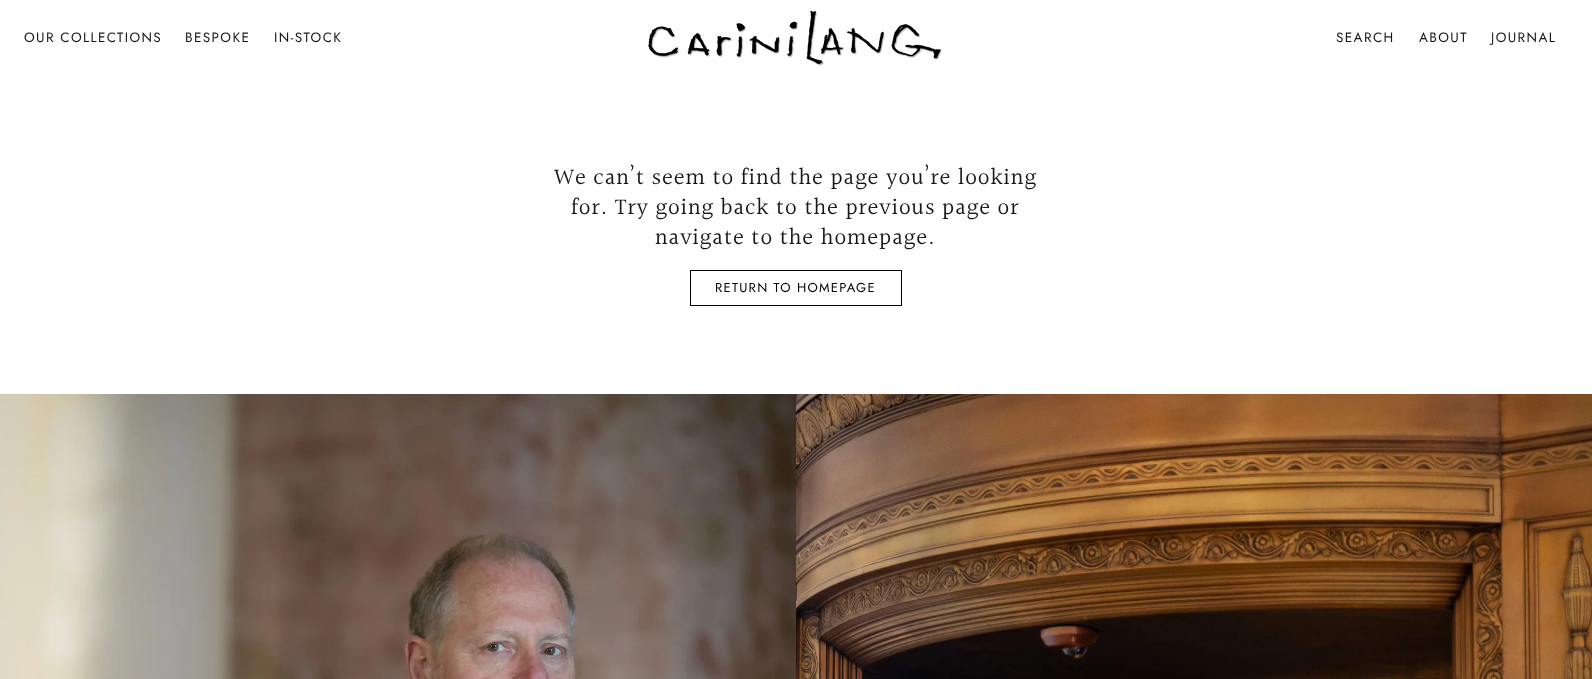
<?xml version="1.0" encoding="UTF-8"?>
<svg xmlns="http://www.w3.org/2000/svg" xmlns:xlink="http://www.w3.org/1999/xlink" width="1592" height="679">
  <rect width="100%" height="100%" fill="#ffffff" />
  <image x="648" y="10" width="294" height="56" xlink:href="image1.png" />
  <rect x="690.5" y="270.5" width="211" height="35" fill="none" stroke="#000000" />
  <image x="0" y="394" width="796" height="285" xlink:href="image2.png" />
  <image x="796" y="394" width="796" height="285" xlink:href="image3.png" />
  <text x="24" y="42" style="font-family: Jost; font-size: 13.5px; letter-spacing: 1.4px; fill: #171717">OUR COLLECTIONS</text>
  <text x="185" y="42" style="font-family: Jost; font-size: 13.5px; letter-spacing: 1.4px; fill: #171717">BESPOKE</text>
  <text x="274" y="42" style="font-family: Jost; font-size: 13.5px; letter-spacing: 1.4px; fill: #171717">IN-STOCK</text>
  <text x="1336" y="42" style="font-family: Jost; font-size: 13.5px; letter-spacing: 1.4px; fill: #171717">SEARCH</text>
  <text x="1419" y="42" style="font-family: Jost; font-size: 13.5px; letter-spacing: 1.4px; fill: #171717">ABOUT</text>
  <text x="1491" y="42" style="font-family: Jost; font-size: 13.5px; letter-spacing: 1.4px; fill: #171717">JOURNAL</text>
  <text x="554" y="185" style="font-family: Halant; font-size: 23px; letter-spacing: 0.9px; fill: #171717">We can’t seem to find the page you’re looking</text>
  <text x="571" y="215" style="font-family: Halant; font-size: 23px; letter-spacing: 0.9px; fill: #171717">for. Try going back to the previous page or</text>
  <text x="655" y="245" style="font-family: Halant; font-size: 23px; letter-spacing: 0.9px; fill: #171717">navigate to the homepage.</text>
  <text x="715" y="292" style="font-family: Jost; font-size: 13px; letter-spacing: 1.25px; fill: #000000">RETURN TO HOMEPAGE</text>
</svg>
